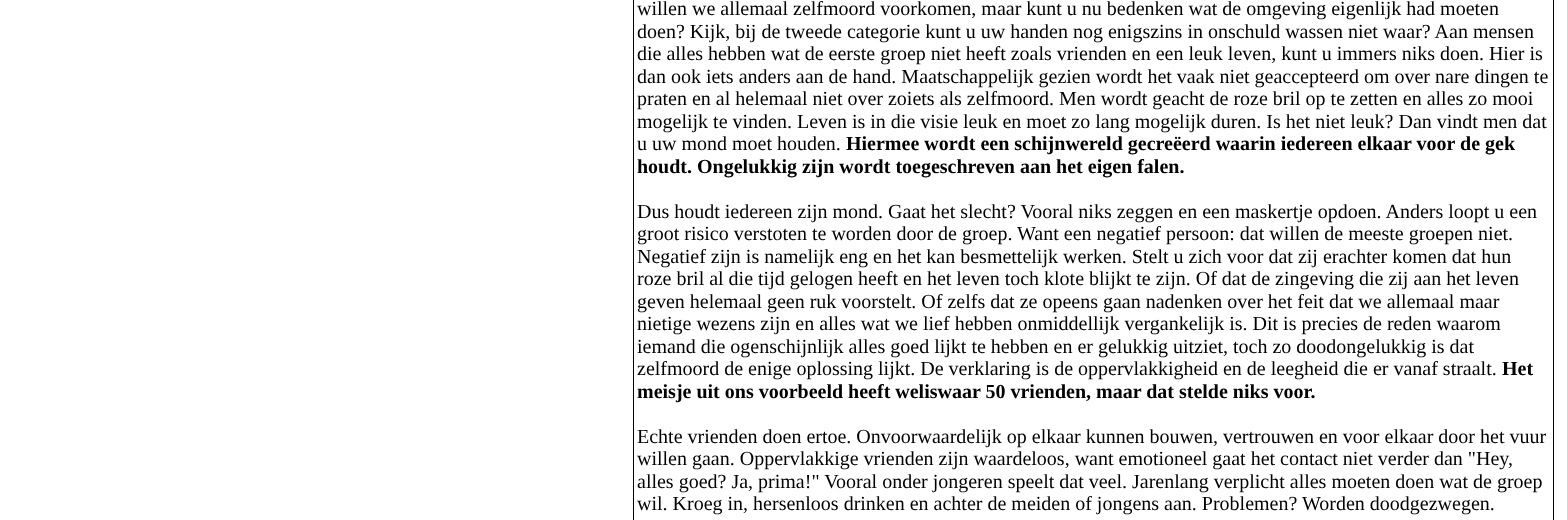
<?xml version="1.0" encoding="UTF-8"?>
<svg xmlns="http://www.w3.org/2000/svg" xmlns:xlink="http://www.w3.org/1999/xlink" width="1567" height="520">
  <rect width="100%" height="100%" fill="#ffffff" />
  <rect x="633.5" y="-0.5" width="920" height="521" fill="none" stroke="#000000" />
  <text x="637" y="15" style="font-family: Liberation Serif; font-size: 20px; fill: #000000">willen we allemaal zelfmoord voorkomen, maar kunt u nu bedenken wat de omgeving eigenlijk had moeten</text>
  <text x="637" y="38" style="font-family: Liberation Serif; font-size: 20px; fill: #000000">doen? Kijk, bij de tweede categorie kunt u uw handen nog enigszins in onschuld wassen niet waar? Aan mensen</text>
  <text x="637" y="60" style="font-family: Liberation Serif; font-size: 20px; fill: #000000">die alles hebben wat de eerste groep niet heeft zoals vrienden en een leuk leven, kunt u immers niks doen. Hier is</text>
  <text x="637" y="83" style="font-family: Liberation Serif; font-size: 20px; fill: #000000">dan ook iets anders aan de hand. Maatschappelijk gezien wordt het vaak niet geaccepteerd om over nare dingen te</text>
  <text x="637" y="105" style="font-family: Liberation Serif; font-size: 20px; fill: #000000">praten en al helemaal niet over zoiets als zelfmoord. Men wordt geacht de roze bril op te zetten en alles zo mooi</text>
  <text x="637" y="128" style="font-family: Liberation Serif; font-size: 20px; fill: #000000">mogelijk te vinden. Leven is in die visie leuk en moet zo lang mogelijk duren. Is het niet leuk? Dan vindt men dat</text>
  <text x="637" y="150" style="font-family: Liberation Serif; font-size: 20px; fill: #000000">u uw mond moet houden.</text>
  <text x="846" y="150" style="font-family: Liberation Serif; font-size: 20px; font-weight: bold; fill: #000000">Hiermee wordt een schijnwereld gecreëerd waarin iedereen elkaar voor de gek</text>
  <text x="637" y="173" style="font-family: Liberation Serif; font-size: 20px; font-weight: bold; fill: #000000">houdt. Ongelukkig zijn wordt toegeschreven aan het eigen falen.</text>
  <text x="637" y="218" style="font-family: Liberation Serif; font-size: 20px; fill: #000000">Dus houdt iedereen zijn mond. Gaat het slecht? Vooral niks zeggen en een maskertje opdoen. Anders loopt u een</text>
  <text x="637" y="240" style="font-family: Liberation Serif; font-size: 20px; fill: #000000">groot risico verstoten te worden door de groep. Want een negatief persoon: dat willen de meeste groepen niet.</text>
  <text x="637" y="263" style="font-family: Liberation Serif; font-size: 20px; fill: #000000">Negatief zijn is namelijk eng en het kan besmettelijk werken. Stelt u zich voor dat zij erachter komen dat hun</text>
  <text x="637" y="285" style="font-family: Liberation Serif; font-size: 20px; fill: #000000">roze bril al die tijd gelogen heeft en het leven toch klote blijkt te zijn. Of dat de zingeving die zij aan het leven</text>
  <text x="637" y="308" style="font-family: Liberation Serif; font-size: 20px; fill: #000000">geven helemaal geen ruk voorstelt. Of zelfs dat ze opeens gaan nadenken over het feit dat we allemaal maar</text>
  <text x="637" y="330" style="font-family: Liberation Serif; font-size: 20px; fill: #000000">nietige wezens zijn en alles wat we lief hebben onmiddellijk vergankelijk is. Dit is precies de reden waarom</text>
  <text x="637" y="353" style="font-family: Liberation Serif; font-size: 20px; fill: #000000">iemand die ogenschijnlijk alles goed lijkt te hebben en er gelukkig uitziet, toch zo doodongelukkig is dat</text>
  <text x="637" y="375" style="font-family: Liberation Serif; font-size: 20px; fill: #000000">zelfmoord de enige oplossing lijkt. De verklaring is de oppervlakkigheid en de leegheid die er vanaf straalt.</text>
  <text x="1502" y="375" style="font-family: Liberation Serif; font-size: 20px; font-weight: bold; fill: #000000">Het</text>
  <text x="637" y="398" style="font-family: Liberation Serif; font-size: 20px; font-weight: bold; fill: #000000">meisje uit ons voorbeeld heeft weliswaar 50 vrienden, maar dat stelde niks voor.</text>
  <text x="637" y="443" style="font-family: Liberation Serif; font-size: 20px; fill: #000000">Echte vrienden doen ertoe. Onvoorwaardelijk op elkaar kunnen bouwen, vertrouwen en voor elkaar door het vuur</text>
  <text x="637" y="465" style="font-family: Liberation Serif; font-size: 20px; fill: #000000">willen gaan. Oppervlakkige vrienden zijn waardeloos, want emotioneel gaat het contact niet verder dan "Hey,</text>
  <text x="637" y="488" style="font-family: Liberation Serif; font-size: 20px; fill: #000000">alles goed? Ja, prima!" Vooral onder jongeren speelt dat veel. Jarenlang verplicht alles moeten doen wat de groep</text>
  <text x="637" y="510" style="font-family: Liberation Serif; font-size: 20px; fill: #000000">wil. Kroeg in, hersenloos drinken en achter de meiden of jongens aan. Problemen? Worden doodgezwegen.</text>
</svg>
